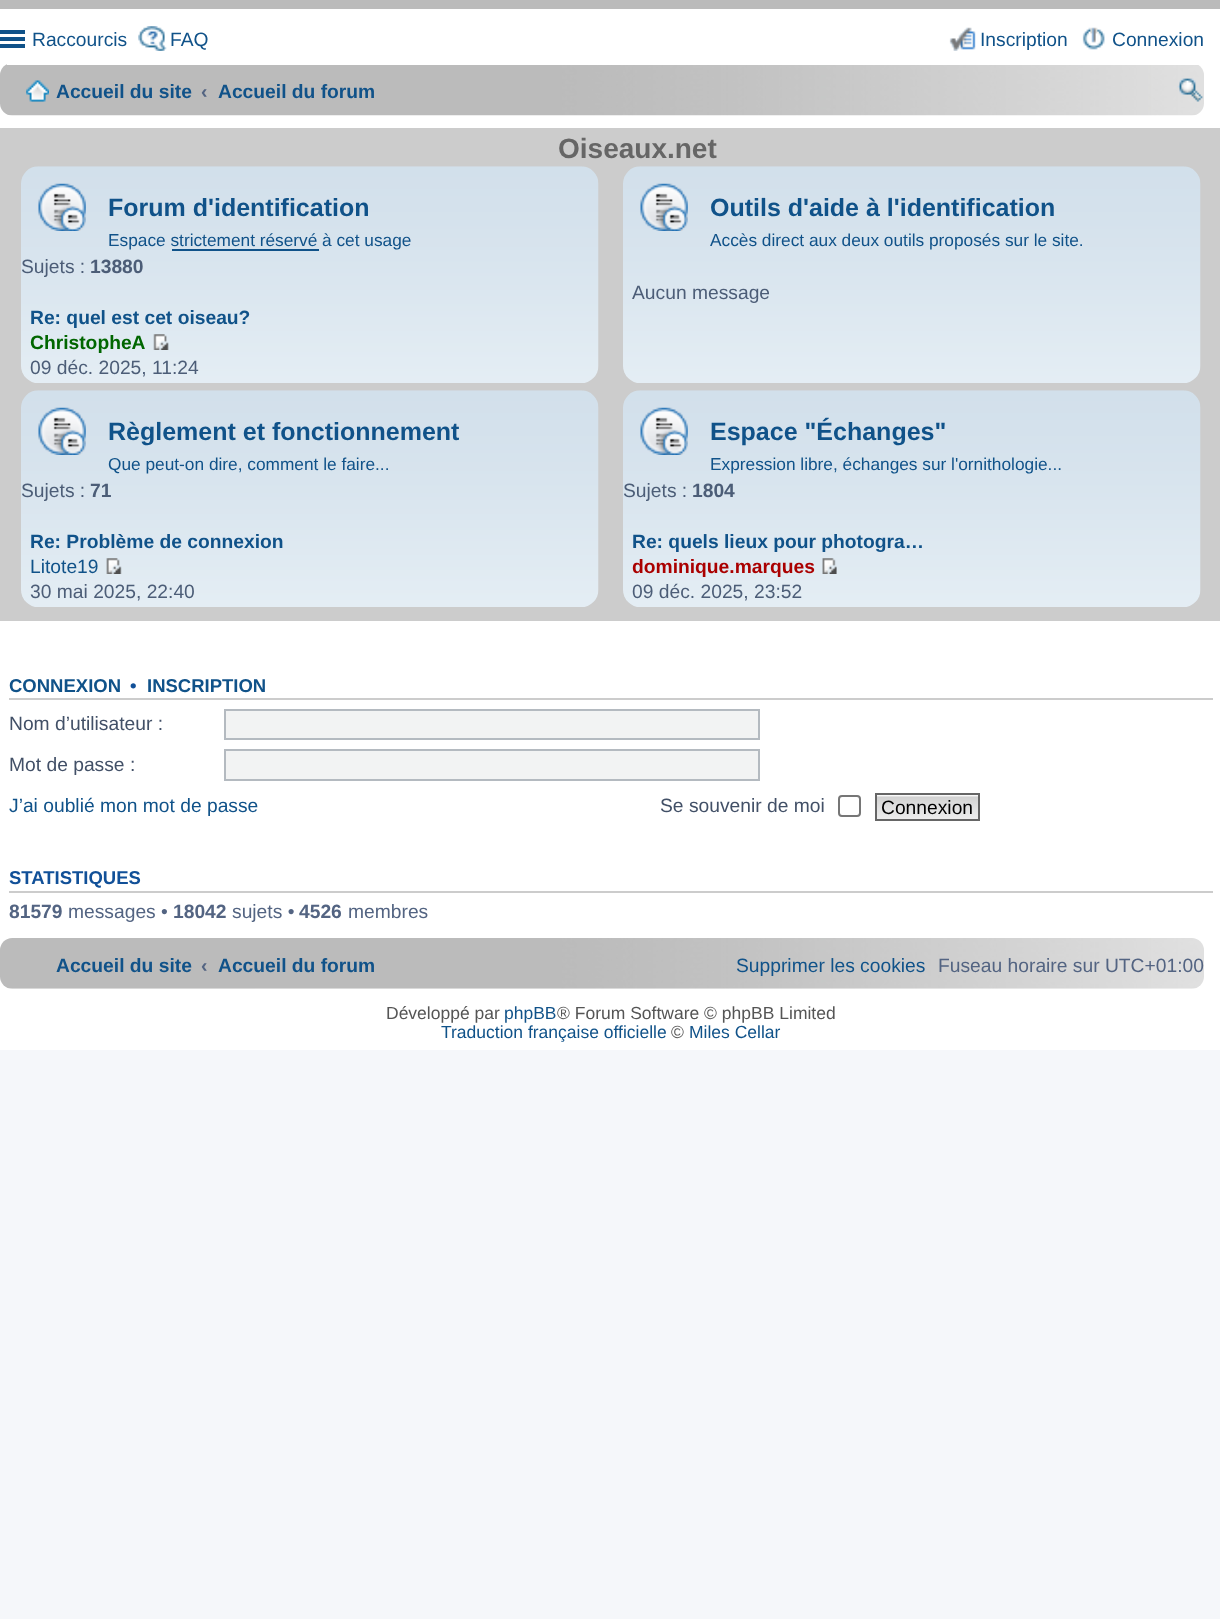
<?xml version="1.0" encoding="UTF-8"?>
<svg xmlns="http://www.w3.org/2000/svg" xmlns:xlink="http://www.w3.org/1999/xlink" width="1220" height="1619">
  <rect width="100%" height="100%" fill="#f5f7fa" />
  <rect y="9" width="1220" height="1041" fill="#ffffff" />
  <rect width="1220" height="9" fill="#bbbbbb" />
  <rect y="30" width="25" height="4" fill="#105289" />
  <rect y="37" width="25" height="4" fill="#105289" />
  <rect y="44" width="25" height="4" fill="#105289" />
  <image x="138" y="26" width="29" height="25" xlink:href="image1.png" />
  <image x="949" y="27" width="27" height="24" xlink:href="image2.png" />
  <image x="1082" y="27" width="23" height="23" xlink:href="image3.png" />
  <image x="0" y="64" width="1204" height="52" xlink:href="image4.png" />
  <rect x="7" y="64" width="1192" height="1" fill="#ffffff" />
  <image x="26" y="80" width="23" height="22" xlink:href="image5.png" />
  <image x="1177" y="78" width="26" height="24" xlink:href="image6.png" />
  <rect y="128" width="1220" height="493" fill="#cccccc" />
  <image x="21" y="166" width="578" height="217" xlink:href="image7.png" />
  <image x="38" y="183" width="48" height="48" xlink:href="image8.png" />
  <rect x="172" y="249" width="147" height="2" fill="#105289" />
  <image x="153" y="334" width="16" height="16" xlink:href="image9.png" />
  <image x="623" y="166" width="578" height="217" xlink:href="image10.png" />
  <image x="640" y="183" width="48" height="48" xlink:href="image11.png" />
  <image x="21" y="390" width="578" height="217" xlink:href="image7.png" />
  <image x="38" y="407" width="48" height="48" xlink:href="image12.png" />
  <image x="106" y="558" width="16" height="16" xlink:href="image13.png" />
  <image x="623" y="390" width="578" height="217" xlink:href="image10.png" />
  <image x="640" y="407" width="48" height="48" xlink:href="image14.png" />
  <image x="822" y="558" width="15" height="16" xlink:href="image15.png" />
  <rect x="9" y="698" width="1204" height="2" fill="#cccccc" />
  <rect x="225" y="710" width="534" height="29" fill="#f2f3f3" stroke="#b4bac0" stroke-width="2" />
  <rect x="225" y="750" width="534" height="30" fill="#f2f3f3" stroke="#b4bac0" stroke-width="2" />
  <rect x="839" y="796" width="21" height="20" rx="3" fill="none" stroke="#767676" stroke-width="2" />
  <rect x="877" y="795" width="101" height="1" fill="#fafafa" />
  <image x="877" y="796" width="101" height="23" xlink:href="image16.png" />
  <rect x="876" y="794" width="103" height="26" fill="none" stroke="#666666" stroke-width="2" />
  <rect x="9" y="891" width="1204" height="2" fill="#cccccc" />
  <image x="0" y="938" width="1204" height="51" xlink:href="image17.png" />
  <text x="32" y="46" style="font-family: Liberation Sans; font-size: 19.25px; fill: #105289">Raccourcis</text>
  <text x="170" y="46" style="font-family: Liberation Sans; font-size: 19.25px; fill: #105289">FAQ</text>
  <text x="980" y="46" style="font-family: Liberation Sans; font-size: 19.25px; fill: #105289">Inscription</text>
  <text x="1112" y="46" style="font-family: Liberation Sans; font-size: 19.25px; fill: #105289">Connexion</text>
  <text x="56" y="98" style="font-family: Liberation Sans; font-size: 19.25px; font-weight: bold; fill: #105289">Accueil du site</text>
  <text x="201" y="98" style="font-family: Liberation Sans; font-size: 19.25px; font-weight: bold; fill: #536482">‹</text>
  <text x="218" y="98" style="font-family: Liberation Sans; font-size: 19.25px; font-weight: bold; fill: #105289">Accueil du forum</text>
  <text x="558" y="158" style="font-family: Liberation Sans; font-size: 28px; font-weight: bold; fill: #666666">Oiseaux.net</text>
  <text x="108" y="216" style="font-family: Liberation Sans; font-size: 25px; font-weight: bold; fill: #105289">Forum d'identification</text>
  <text x="108" y="246" style="font-family: Liberation Sans; font-size: 17.3px; fill: #105289">Espace strictement réservé</text>
  <text x="322" y="246" style="font-family: Liberation Sans; font-size: 17.3px; fill: #105289">à cet usage</text>
  <text x="21" y="273" style="font-family: Liberation Sans; font-size: 19.25px; fill: #4c5d77">Sujets :</text>
  <text x="90" y="273" style="font-family: Liberation Sans; font-size: 19.25px; font-weight: bold; fill: #4c5d77">13880</text>
  <text x="30" y="324" style="font-family: Liberation Sans; font-size: 19.25px; font-weight: bold; fill: #105289">Re: quel est cet oiseau?</text>
  <text x="30" y="349" style="font-family: Liberation Sans; font-size: 19.25px; font-weight: bold; fill: #006600">ChristopheA</text>
  <text x="30" y="374" style="font-family: Liberation Sans; font-size: 19.25px; fill: #4c5d77">09 déc. 2025, 11:24</text>
  <text x="710" y="216" style="font-family: Liberation Sans; font-size: 25px; font-weight: bold; fill: #105289">Outils d'aide à l'identification</text>
  <text x="710" y="246" style="font-family: Liberation Sans; font-size: 17.3px; fill: #105289">Accès direct aux deux outils proposés sur le site.</text>
  <text x="632" y="299" style="font-family: Liberation Sans; font-size: 19.25px; fill: #4c5d77">Aucun message</text>
  <text x="108" y="440" style="font-family: Liberation Sans; font-size: 25px; font-weight: bold; fill: #105289">Règlement et fonctionnement</text>
  <text x="108" y="470" style="font-family: Liberation Sans; font-size: 17.3px; fill: #105289">Que peut-on dire, comment le faire...</text>
  <text x="21" y="497" style="font-family: Liberation Sans; font-size: 19.25px; fill: #4c5d77">Sujets :</text>
  <text x="90" y="497" style="font-family: Liberation Sans; font-size: 19.25px; font-weight: bold; fill: #4c5d77">71</text>
  <text x="30" y="548" style="font-family: Liberation Sans; font-size: 19.25px; font-weight: bold; fill: #105289">Re: Problème de connexion</text>
  <text x="30" y="573" style="font-family: Liberation Sans; font-size: 19.25px; fill: #105289">Litote19</text>
  <text x="30" y="598" style="font-family: Liberation Sans; font-size: 19.25px; fill: #4c5d77">30 mai 2025, 22:40</text>
  <text x="710" y="440" style="font-family: Liberation Sans; font-size: 25px; font-weight: bold; fill: #105289">Espace "Échanges"</text>
  <text x="710" y="470" style="font-family: Liberation Sans; font-size: 17.3px; fill: #105289">Expression libre, échanges sur l'ornithologie...</text>
  <text x="623" y="497" style="font-family: Liberation Sans; font-size: 19.25px; fill: #4c5d77">Sujets :</text>
  <text x="692" y="497" style="font-family: Liberation Sans; font-size: 19.25px; font-weight: bold; fill: #4c5d77">1804</text>
  <text x="632" y="548" style="font-family: Liberation Sans; font-size: 19.25px; font-weight: bold; fill: #105289">Re: quels lieux pour photogra…</text>
  <text x="632" y="573" style="font-family: Liberation Sans; font-size: 19.25px; font-weight: bold; fill: #aa0000">dominique.marques</text>
  <text x="632" y="598" style="font-family: Liberation Sans; font-size: 19.25px; fill: #4c5d77">09 déc. 2025, 23:52</text>
  <text x="9" y="692" style="font-family: Liberation Sans; font-size: 18.5px; font-weight: bold; fill: #105289">CONNEXION</text>
  <text x="130" y="692" style="font-family: Liberation Sans; font-size: 18.5px; font-weight: bold; fill: #115098">•</text>
  <text x="147" y="692" style="font-family: Liberation Sans; font-size: 18.5px; font-weight: bold; fill: #105289">INSCRIPTION</text>
  <text x="9" y="730" style="font-family: Liberation Sans; font-size: 19.25px; fill: #425067">Nom d’utilisateur :</text>
  <text x="9" y="771" style="font-family: Liberation Sans; font-size: 19.25px; fill: #425067">Mot de passe :</text>
  <text x="9" y="812" style="font-family: Liberation Sans; font-size: 19.25px; fill: #105289">J’ai oublié mon mot de passe</text>
  <text x="660" y="812" style="font-family: Liberation Sans; font-size: 19.25px; fill: #425067">Se souvenir de moi</text>
  <text x="881" y="814" style="font-family: Liberation Sans; font-size: 19.25px; fill: #000000">Connexion</text>
  <text x="9" y="884" style="font-family: Liberation Sans; font-size: 18.5px; font-weight: bold; fill: #115098">STATISTIQUES</text>
  <text x="9" y="918" style="font-family: Liberation Sans; font-size: 19.25px; font-weight: bold; fill: #536482">81579</text>
  <text x="68" y="918" style="font-family: Liberation Sans; font-size: 19.25px; fill: #536482">messages •</text>
  <text x="173" y="918" style="font-family: Liberation Sans; font-size: 19.25px; font-weight: bold; fill: #536482">18042</text>
  <text x="232" y="918" style="font-family: Liberation Sans; font-size: 19.25px; fill: #536482">sujets •</text>
  <text x="299" y="918" style="font-family: Liberation Sans; font-size: 19.25px; font-weight: bold; fill: #536482">4526</text>
  <text x="348" y="918" style="font-family: Liberation Sans; font-size: 19.25px; fill: #536482">membres</text>
  <text x="56" y="972" style="font-family: Liberation Sans; font-size: 19.25px; font-weight: bold; fill: #105289">Accueil du site</text>
  <text x="201" y="972" style="font-family: Liberation Sans; font-size: 19.25px; font-weight: bold; fill: #536482">‹</text>
  <text x="218" y="972" style="font-family: Liberation Sans; font-size: 19.25px; font-weight: bold; fill: #105289">Accueil du forum</text>
  <text x="736" y="972" style="font-family: Liberation Sans; font-size: 19.25px; fill: #105289">Supprimer les cookies</text>
  <text x="938" y="972" style="font-family: Liberation Sans; font-size: 19.25px; fill: #536482">Fuseau horaire sur UTC+01:00</text>
  <text x="386" y="1019" style="font-family: Liberation Sans; font-size: 17.5px; fill: #555555">Développé par</text>
  <text x="504" y="1019" style="font-family: Liberation Sans; font-size: 17.5px; fill: #105289">phpBB</text>
  <text x="557" y="1019" style="font-family: Liberation Sans; font-size: 17.5px; fill: #555555">® Forum Software © phpBB Limited</text>
  <text x="441" y="1038" style="font-family: Liberation Sans; font-size: 17.5px; fill: #105289">Traduction française officielle</text>
  <text x="671" y="1038" style="font-family: Liberation Sans; font-size: 17.5px; fill: #555555">©</text>
  <text x="689" y="1038" style="font-family: Liberation Sans; font-size: 17.5px; fill: #105289">Miles Cellar</text>
</svg>
